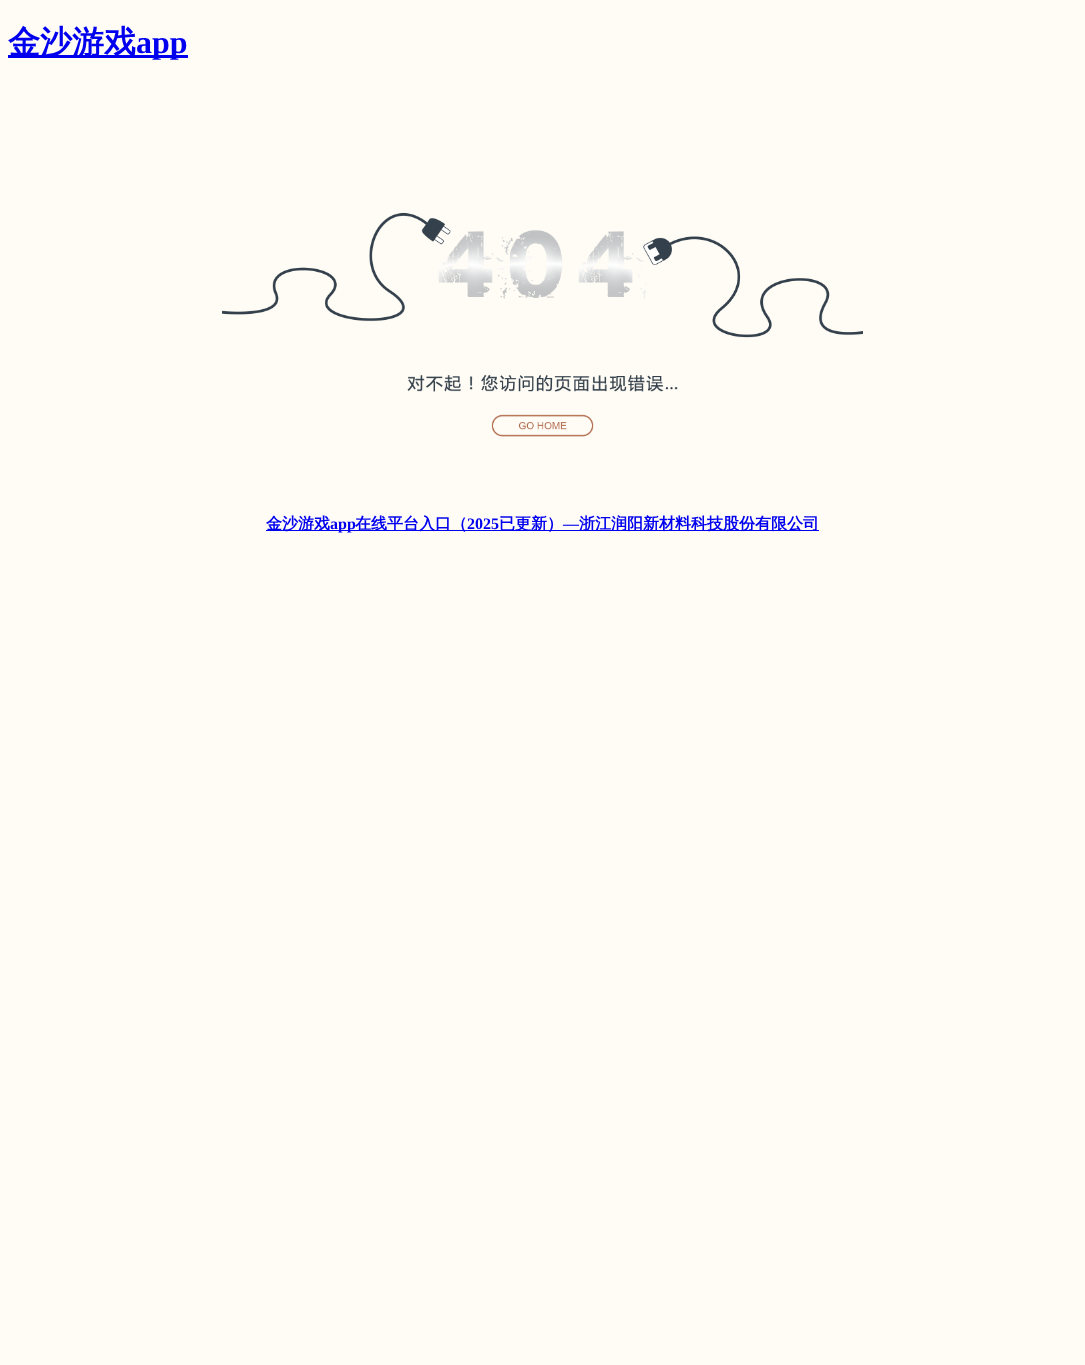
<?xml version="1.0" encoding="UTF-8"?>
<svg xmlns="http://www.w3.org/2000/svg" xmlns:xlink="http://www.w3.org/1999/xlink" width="1085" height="1365">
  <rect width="100%" height="100%" fill="#fffcf6" />
  <rect x="8" y="55" width="180" height="3" fill="#0000ee" />
  <image x="222" y="212" width="641" height="225" xlink:href="image1.png" />
  <rect x="266" y="530" width="553" height="1" fill="#0000ee" />
  <text x="8" y="53" style="font-family: WenQuanYi Zen Hei; font-size: 32px; font-weight: bold; fill: #0000ee">金沙游戏</text>
  <text x="136" y="53" style="font-family: Liberation Serif; font-size: 32px; font-weight: bold; fill: #0000ee">app</text>
  <text x="266" y="529" style="font-family: WenQuanYi Zen Hei; font-size: 16px; font-weight: bold; fill: #0000ee">金沙游戏</text>
  <text x="330" y="529" style="font-family: Liberation Serif; font-size: 16px; font-weight: bold; fill: #0000ee">app</text>
  <text x="355" y="529" style="font-family: WenQuanYi Zen Hei; font-size: 16px; font-weight: bold; fill: #0000ee">在线平台入口（</text>
  <text x="467" y="529" style="font-family: Liberation Serif; font-size: 16px; font-weight: bold; fill: #0000ee">2025</text>
  <text x="499" y="529" style="font-family: WenQuanYi Zen Hei; font-size: 16px; font-weight: bold; fill: #0000ee">已更新）</text>
  <text x="563" y="529" style="font-family: Liberation Serif; font-size: 16px; font-weight: bold; fill: #0000ee">—</text>
  <text x="579" y="529" style="font-family: WenQuanYi Zen Hei; font-size: 16px; font-weight: bold; fill: #0000ee">浙江润阳新材料科技股份有限公司</text>
</svg>
